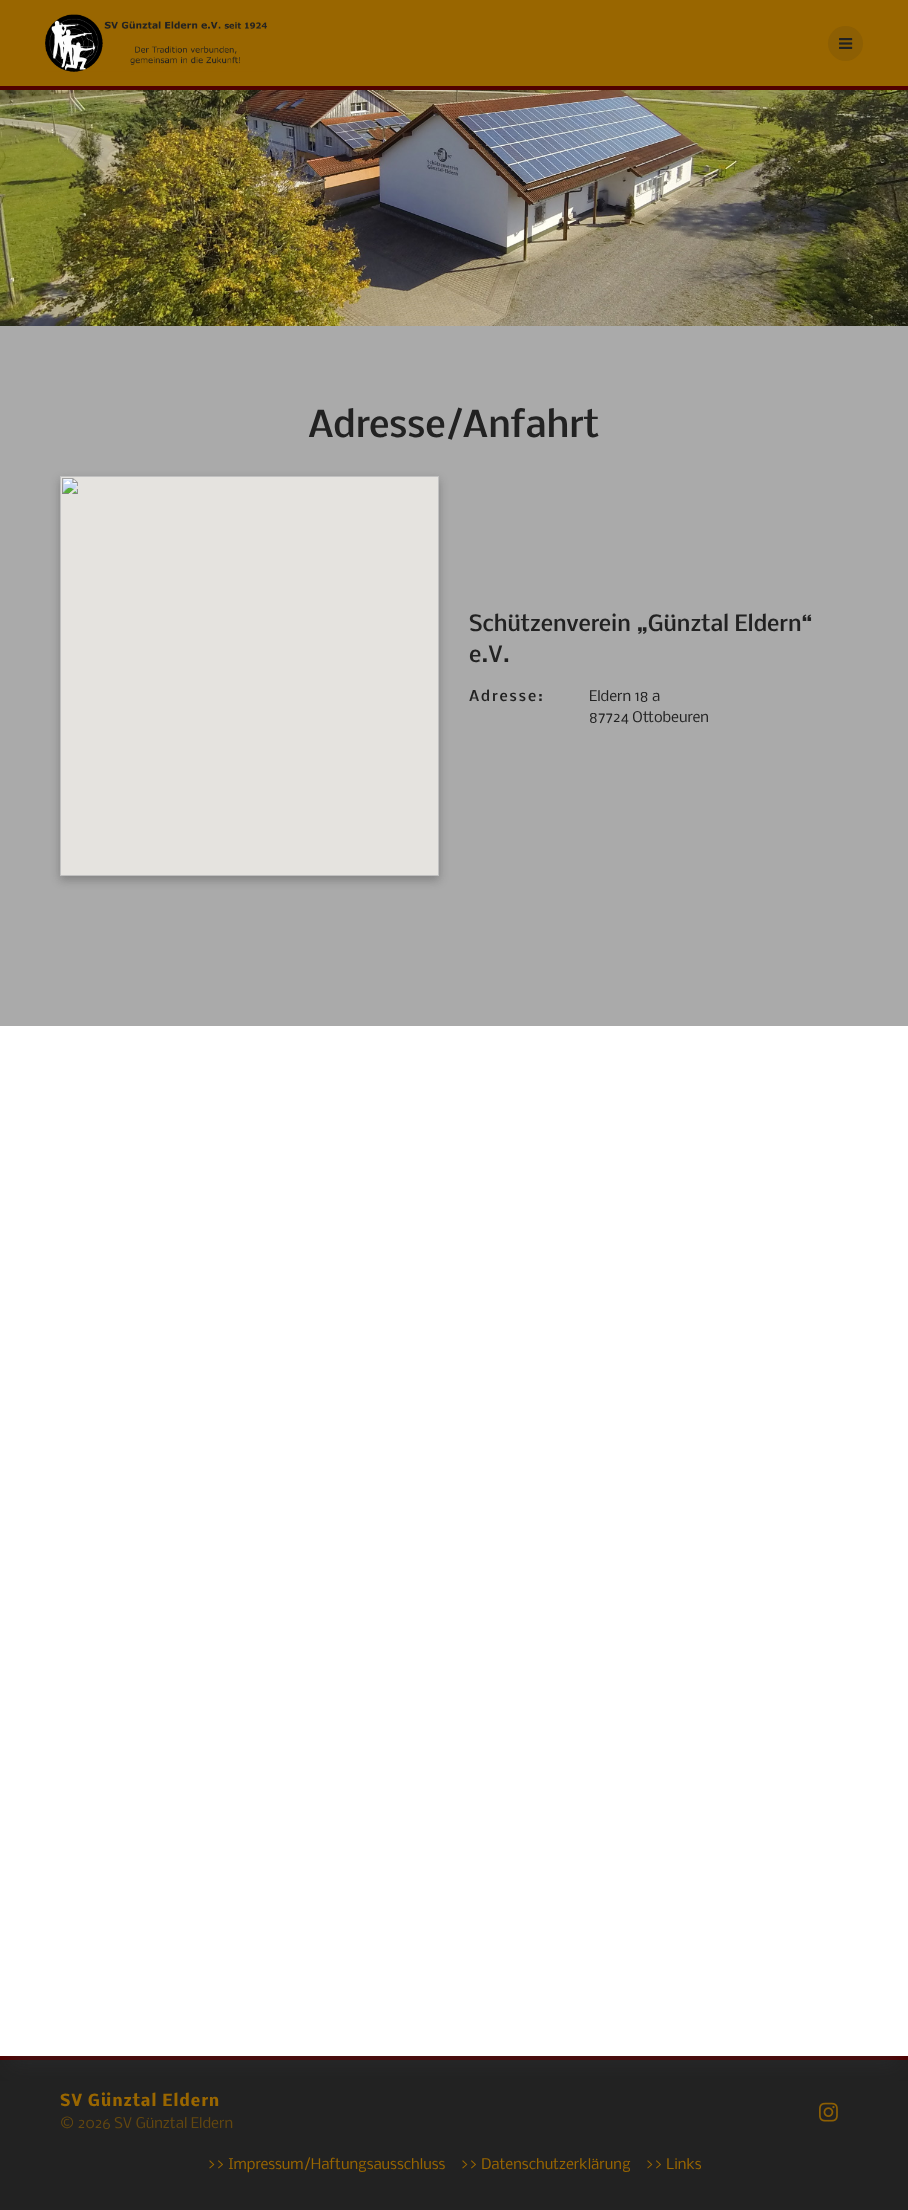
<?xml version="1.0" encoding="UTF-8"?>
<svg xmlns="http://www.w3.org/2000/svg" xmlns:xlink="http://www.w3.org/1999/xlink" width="908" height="2210">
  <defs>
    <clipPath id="clip1"><rect x="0" y="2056" width="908" height="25" /></clipPath>
  </defs>
  <rect width="100%" height="100%" fill="#ffffff" />
  <rect width="908" height="86" fill="#996600" />
  <rect y="86" width="908" height="4" fill="#500000" />
  <image x="45" y="14" width="222" height="58" xlink:href="image1.png" />
  <circle cx="845.5" cy="43.5" r="17.5" fill="#8d5f03" />
  <image x="839" y="38" width="14" height="11" xlink:href="image2.png" />
  <image x="0" y="90" width="908" height="236" xlink:href="image3.png" />
  <rect y="2060" width="908" height="150" fill="#222222" />
  <rect y="2056" width="908" height="4" fill="#500000" />
  <g clip-path="url(#clip1)">
    <rect x="10" y="356" width="888" height="1710" fill="#313439" fill-opacity="0.3" filter="blur(10px)" />
  </g>
  <rect y="326" width="908" height="700" fill="#aaaaaa" />
  <rect x="60" y="480" width="379" height="400" fill="#000000" fill-opacity="0.08" filter="blur(5px)" />
  <rect x="60" y="480" width="379" height="400" fill="#4a4a4a" fill-opacity="0.3" filter="blur(5px)" />
  <image x="60" y="476" width="379" height="400" xlink:href="image4.png" />
  <image x="819" y="2102" width="19" height="20" xlink:href="image5.png" />
  <text x="308" y="437" style="font-family: Nobile; font-size: 35px; font-weight: 500; fill: #222222">Adresse/Anfahrt</text>
  <text x="469" y="631" style="font-family: Nobile; font-size: 21px; font-weight: 500; fill: #222222">Schützenverein „Günztal Eldern“</text>
  <text x="469" y="662" style="font-family: Nobile; font-size: 21px; font-weight: 500; fill: #222222">e.V.</text>
  <text x="469" y="701" style="font-family: Nobile; font-size: 14px; font-weight: 500; letter-spacing: 2px; fill: #222222">Adresse:</text>
  <text x="589" y="701" style="font-family: Nobile; font-size: 14px; fill: #222222">Eldern 18 a</text>
  <text x="589" y="722" style="font-family: Nobile; font-size: 14px; fill: #222222">87724 Ottobeuren</text>
  <text x="60" y="2106" style="font-family: Nobile; font-size: 15.4px; font-weight: bold; letter-spacing: 0.9px; fill: #996600">SV Günztal Eldern</text>
  <text x="60" y="2128" style="font-family: Nobile; font-size: 14px; fill: #63470f">© 2026 SV Günztal Eldern</text>
  <text x="207" y="2169" style="font-family: Nobile; font-size: 14px; fill: #996600">&gt;&gt; Impressum/Haftungsausschluss</text>
  <text x="460" y="2169" style="font-family: Nobile; font-size: 14px; fill: #996600">&gt;&gt; Datenschutzerklärung</text>
  <text x="645" y="2169" style="font-family: Nobile; font-size: 14px; fill: #996600">&gt;&gt; Links</text>
</svg>
